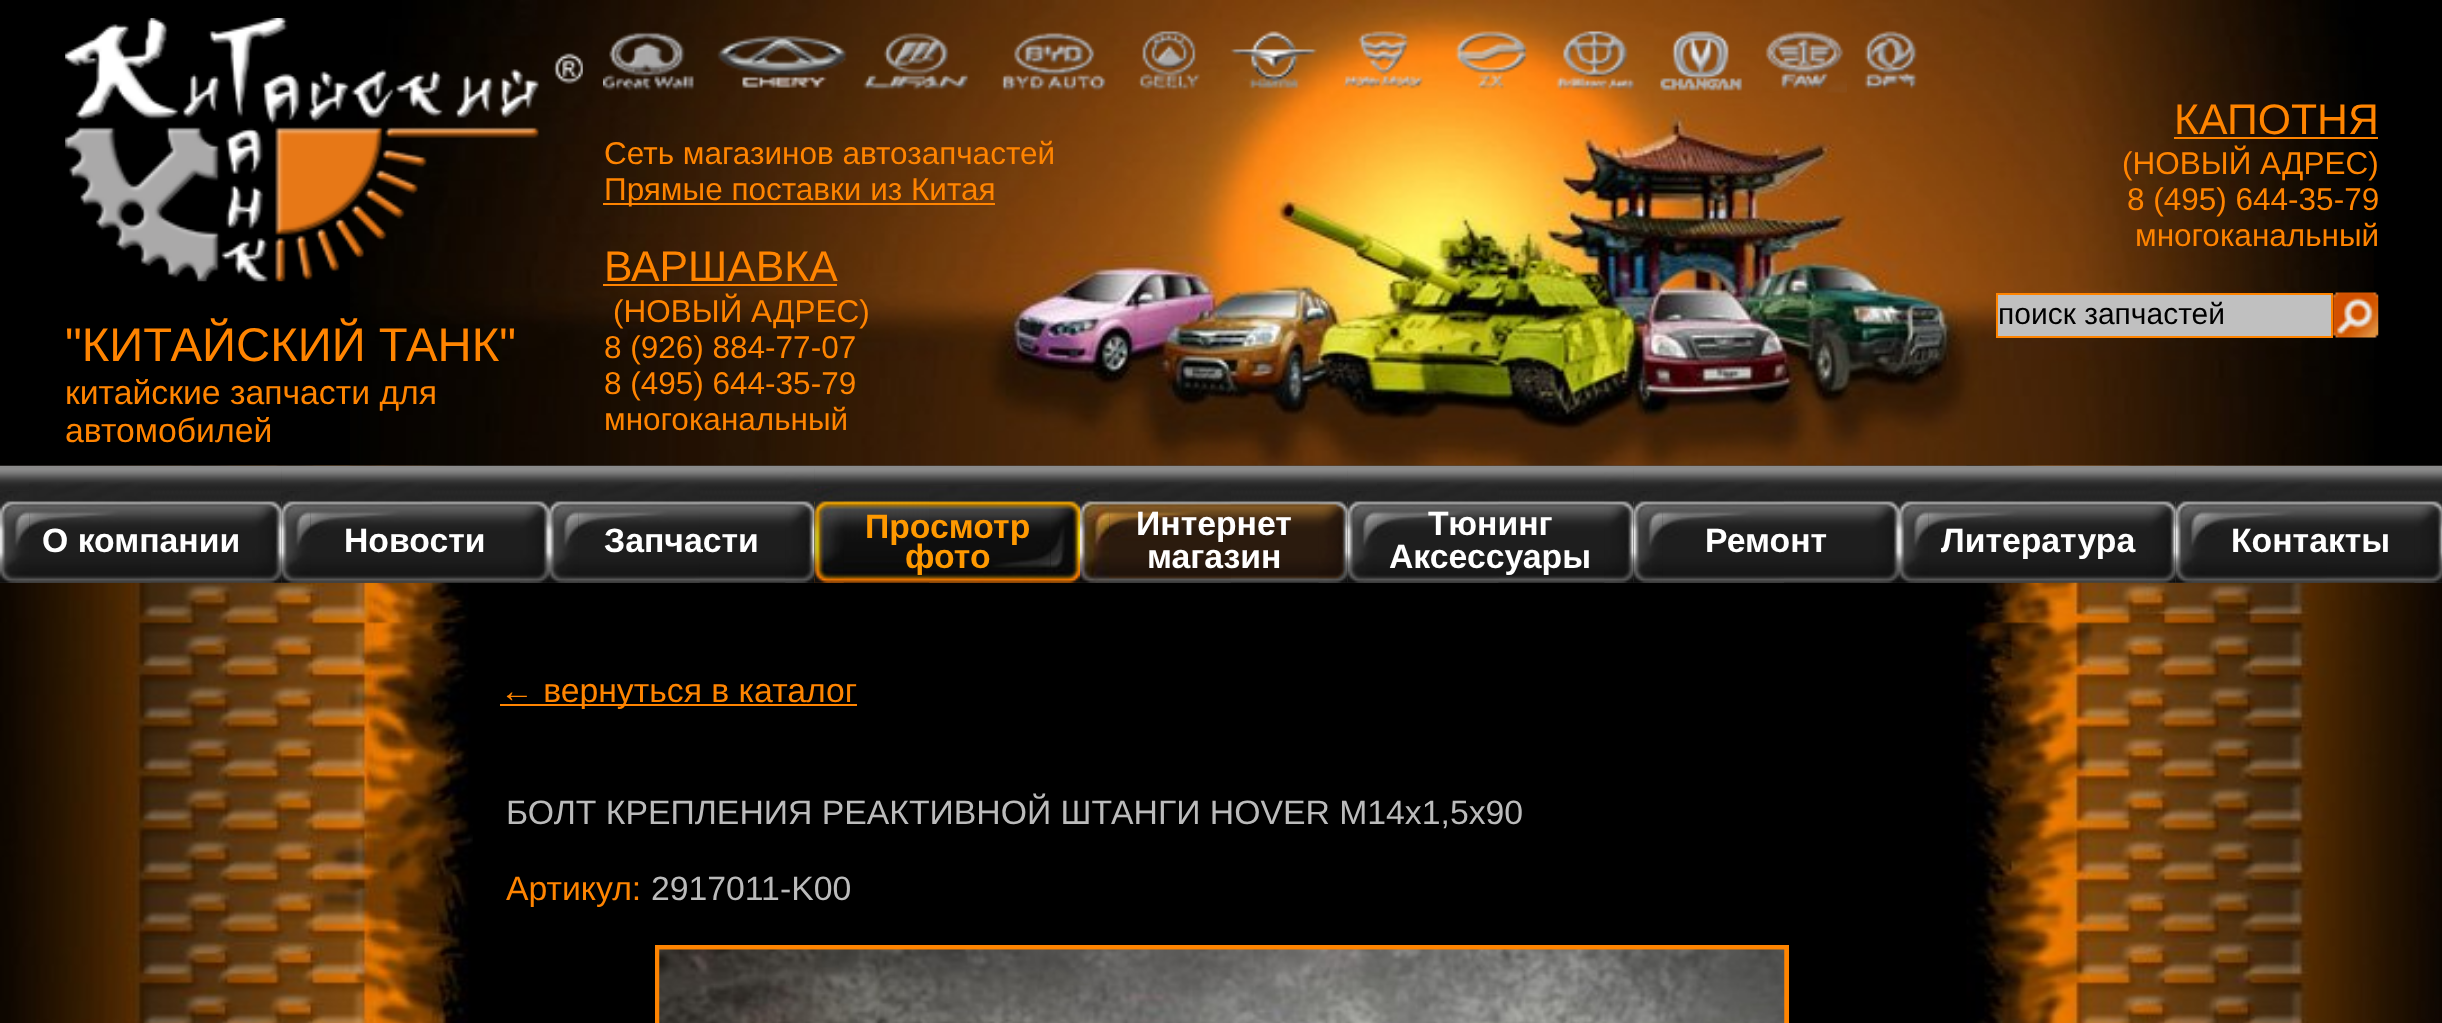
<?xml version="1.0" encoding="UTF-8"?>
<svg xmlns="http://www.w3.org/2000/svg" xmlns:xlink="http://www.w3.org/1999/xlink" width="2442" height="1023">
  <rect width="100%" height="100%" fill="#000000" />
  <image x="350" y="0" width="2024" height="466" xlink:href="image1.png" />
  <image x="65" y="18" width="518" height="264" xlink:href="image2.png" />
  <image x="603" y="31" width="91" height="60" xlink:href="image3.png" />
  <image x="717" y="35" width="130" height="53" xlink:href="image4.png" />
  <image x="863" y="32" width="106" height="59" xlink:href="image5.png" />
  <image x="1001" y="31" width="105" height="60" xlink:href="image6.png" />
  <image x="1138" y="31" width="62" height="60" xlink:href="image7.png" />
  <image x="1230" y="31" width="87" height="58" xlink:href="image8.png" />
  <image x="1343" y="31" width="80" height="58" xlink:href="image9.png" />
  <image x="1455" y="31" width="73" height="59" xlink:href="image10.png" />
  <image x="1556" y="31" width="80" height="60" xlink:href="image11.png" />
  <image x="1660" y="31" width="83" height="60" xlink:href="image12.png" />
  <image x="1765" y="31" width="82" height="62" xlink:href="image13.png" />
  <image x="1864" y="31" width="54" height="58" xlink:href="image14.png" />
  <rect x="603" y="203" width="392" height="2" fill="#ff8400" />
  <rect x="603" y="284" width="234" height="2" fill="#ff8400" />
  <rect x="2174" y="137" width="204" height="2" fill="#ff8400" />
  <rect x="1997" y="294" width="335" height="43" fill="#c0c0c0" stroke="#ff8400" stroke-width="2" />
  <image x="2333" y="292" width="46" height="46" xlink:href="image15.png" />
  <image x="0" y="465" width="473" height="558" xlink:href="image16.png" />
  <image x="1966" y="465" width="476" height="558" xlink:href="image17.png" />
  <image x="0" y="465" width="2442" height="116" xlink:href="image18.png" />
  <image x="0" y="468" width="282" height="115" xlink:href="image19.png" />
  <image x="0" y="491" width="30" height="92" xlink:href="image20.png" />
  <image x="29" y="482" width="122" height="101" xlink:href="image21.png" />
  <image x="252" y="501" width="30" height="82" xlink:href="image22.png" />
  <image x="281" y="468" width="268" height="115" xlink:href="image23.png" />
  <image x="281" y="491" width="30" height="92" xlink:href="image24.png" />
  <image x="310" y="482" width="122" height="101" xlink:href="image25.png" />
  <image x="520" y="501" width="29" height="82" xlink:href="image26.png" />
  <image x="549" y="468" width="266" height="115" xlink:href="image27.png" />
  <image x="549" y="491" width="30" height="92" xlink:href="image28.png" />
  <image x="578" y="482" width="122" height="101" xlink:href="image29.png" />
  <image x="785" y="472" width="30" height="111" xlink:href="image30.png" />
  <image x="814" y="468" width="266" height="115" xlink:href="image31.png" />
  <image x="814" y="486" width="30" height="97" xlink:href="image32.png" />
  <image x="929" y="485" width="122" height="98" xlink:href="image33.png" />
  <image x="1051" y="486" width="29" height="97" xlink:href="image34.png" />
  <image x="1080" y="468" width="268" height="115" xlink:href="image35.png" />
  <image x="1080" y="487" width="30" height="96" xlink:href="image36.png" />
  <image x="1109" y="482" width="122" height="101" xlink:href="image37.png" />
  <image x="1318" y="476" width="30" height="107" xlink:href="image38.png" />
  <image x="1347" y="468" width="287" height="115" xlink:href="image39.png" />
  <image x="1347" y="491" width="30" height="92" xlink:href="image40.png" />
  <image x="1377" y="482" width="122" height="101" xlink:href="image41.png" />
  <image x="1604" y="472" width="30" height="111" xlink:href="image42.png" />
  <image x="1633" y="468" width="266" height="115" xlink:href="image43.png" />
  <image x="1633" y="491" width="30" height="92" xlink:href="image44.png" />
  <image x="1662" y="482" width="122" height="101" xlink:href="image45.png" />
  <image x="1870" y="501" width="29" height="82" xlink:href="image46.png" />
  <image x="1899" y="468" width="277" height="115" xlink:href="image47.png" />
  <image x="1899" y="491" width="30" height="92" xlink:href="image48.png" />
  <image x="1928" y="482" width="122" height="101" xlink:href="image49.png" />
  <image x="2146" y="476" width="30" height="107" xlink:href="image50.png" />
  <image x="2175" y="468" width="267" height="115" xlink:href="image51.png" />
  <image x="2175" y="491" width="30" height="92" xlink:href="image52.png" />
  <image x="2205" y="482" width="122" height="101" xlink:href="image53.png" />
  <image x="2414" y="501" width="28" height="82" xlink:href="image54.png" />
  <rect x="500" y="704" width="357" height="2" fill="#ff8400" />
  <rect x="657.5" y="947.5" width="1129" height="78" fill="none" stroke="#ff8400" stroke-width="5" />
  <image x="659" y="949" width="1126" height="74" xlink:href="image55.png" />
  <text x="65" y="361" style="font-family: Liberation Sans; font-size: 47.25px; fill: #ff8400">"КИТАЙСКИЙ ТАНК"</text>
  <text x="65" y="404" style="font-family: Liberation Sans; font-size: 33.75px; fill: #ff8400">китайские запчасти для</text>
  <text x="65" y="442" style="font-family: Liberation Sans; font-size: 33.75px; fill: #ff8400">автомобилей</text>
  <text x="604" y="164" style="font-family: Liberation Sans; font-size: 31.5px; fill: #ff8400">Сеть магазинов автозапчастей</text>
  <text x="604" y="200" style="font-family: Liberation Sans; font-size: 31.5px; fill: #ff8400">Прямые поставки из Китая</text>
  <text x="604" y="281" style="font-family: Liberation Sans; font-size: 42.75px; fill: #ff8400">ВАРШАВКА</text>
  <text x="613" y="322" style="font-family: Liberation Sans; font-size: 31.5px; fill: #ff8400">(НОВЫЙ АДРЕС)</text>
  <text x="604" y="358" style="font-family: Liberation Sans; font-size: 31.5px; fill: #ff8400">8 (926) 884-77-07</text>
  <text x="604" y="394" style="font-family: Liberation Sans; font-size: 31.5px; fill: #ff8400">8 (495) 644-35-79</text>
  <text x="604" y="430" style="font-family: Liberation Sans; font-size: 31.5px; fill: #ff8400">многоканальный</text>
  <text x="2174" y="134" style="font-family: Liberation Sans; font-size: 42.75px; fill: #ff8400">КАПОТНЯ</text>
  <text x="2122" y="174" style="font-family: Liberation Sans; font-size: 31.5px; fill: #ff8400">(НОВЫЙ АДРЕС)</text>
  <text x="2127" y="210" style="font-family: Liberation Sans; font-size: 31.5px; fill: #ff8400">8 (495) 644-35-79</text>
  <text x="2135" y="246" style="font-family: Liberation Sans; font-size: 31.5px; fill: #ff8400">многоканальный</text>
  <text x="1998" y="324" style="font-family: Liberation Sans; font-size: 30px; fill: #000000">поиск запчастей</text>
  <text x="42" y="552" style="font-family: Liberation Sans; font-size: 33.75px; font-weight: bold; fill: #ffffff">О компании</text>
  <text x="344" y="552" style="font-family: Liberation Sans; font-size: 33.75px; font-weight: bold; fill: #ffffff">Новости</text>
  <text x="604" y="552" style="font-family: Liberation Sans; font-size: 33.75px; font-weight: bold; fill: #ffffff">Запчасти</text>
  <text x="865" y="538" style="font-family: Liberation Sans; font-size: 33.75px; font-weight: bold; fill: #ff9900">Просмотр</text>
  <text x="905" y="568" style="font-family: Liberation Sans; font-size: 33.75px; font-weight: bold; fill: #ff9900">фото</text>
  <text x="1136" y="535" style="font-family: Liberation Sans; font-size: 33.75px; font-weight: bold; fill: #ffffff">Интернет</text>
  <text x="1147" y="568" style="font-family: Liberation Sans; font-size: 33.75px; font-weight: bold; fill: #ffffff">магазин</text>
  <text x="1428" y="535" style="font-family: Liberation Sans; font-size: 33.75px; font-weight: bold; fill: #ffffff">Тюнинг</text>
  <text x="1389" y="568" style="font-family: Liberation Sans; font-size: 33.75px; font-weight: bold; fill: #ffffff">Аксессуары</text>
  <text x="1705" y="552" style="font-family: Liberation Sans; font-size: 33.75px; font-weight: bold; fill: #ffffff">Ремонт</text>
  <text x="1941" y="552" style="font-family: Liberation Sans; font-size: 33.75px; font-weight: bold; fill: #ffffff">Литература</text>
  <text x="2231" y="552" style="font-family: Liberation Sans; font-size: 33.75px; font-weight: bold; fill: #ffffff">Контакты</text>
  <text x="500" y="702" style="font-family: Liberation Sans; font-size: 33.75px; fill: #ff8400">← вернуться в каталог</text>
  <text x="506" y="824" style="font-family: Liberation Sans; font-size: 33.75px; fill: #bbbbbb">БОЛТ КРЕПЛЕНИЯ РЕАКТИВНОЙ ШТАНГИ HOVER M14x1,5x90</text>
  <text x="506" y="900" style="font-family: Liberation Sans; font-size: 33.75px; fill: #ff8400">Артикул:</text>
  <text x="651" y="900" style="font-family: Liberation Sans; font-size: 33.75px; fill: #bbbbbb">2917011-K00</text>
</svg>
